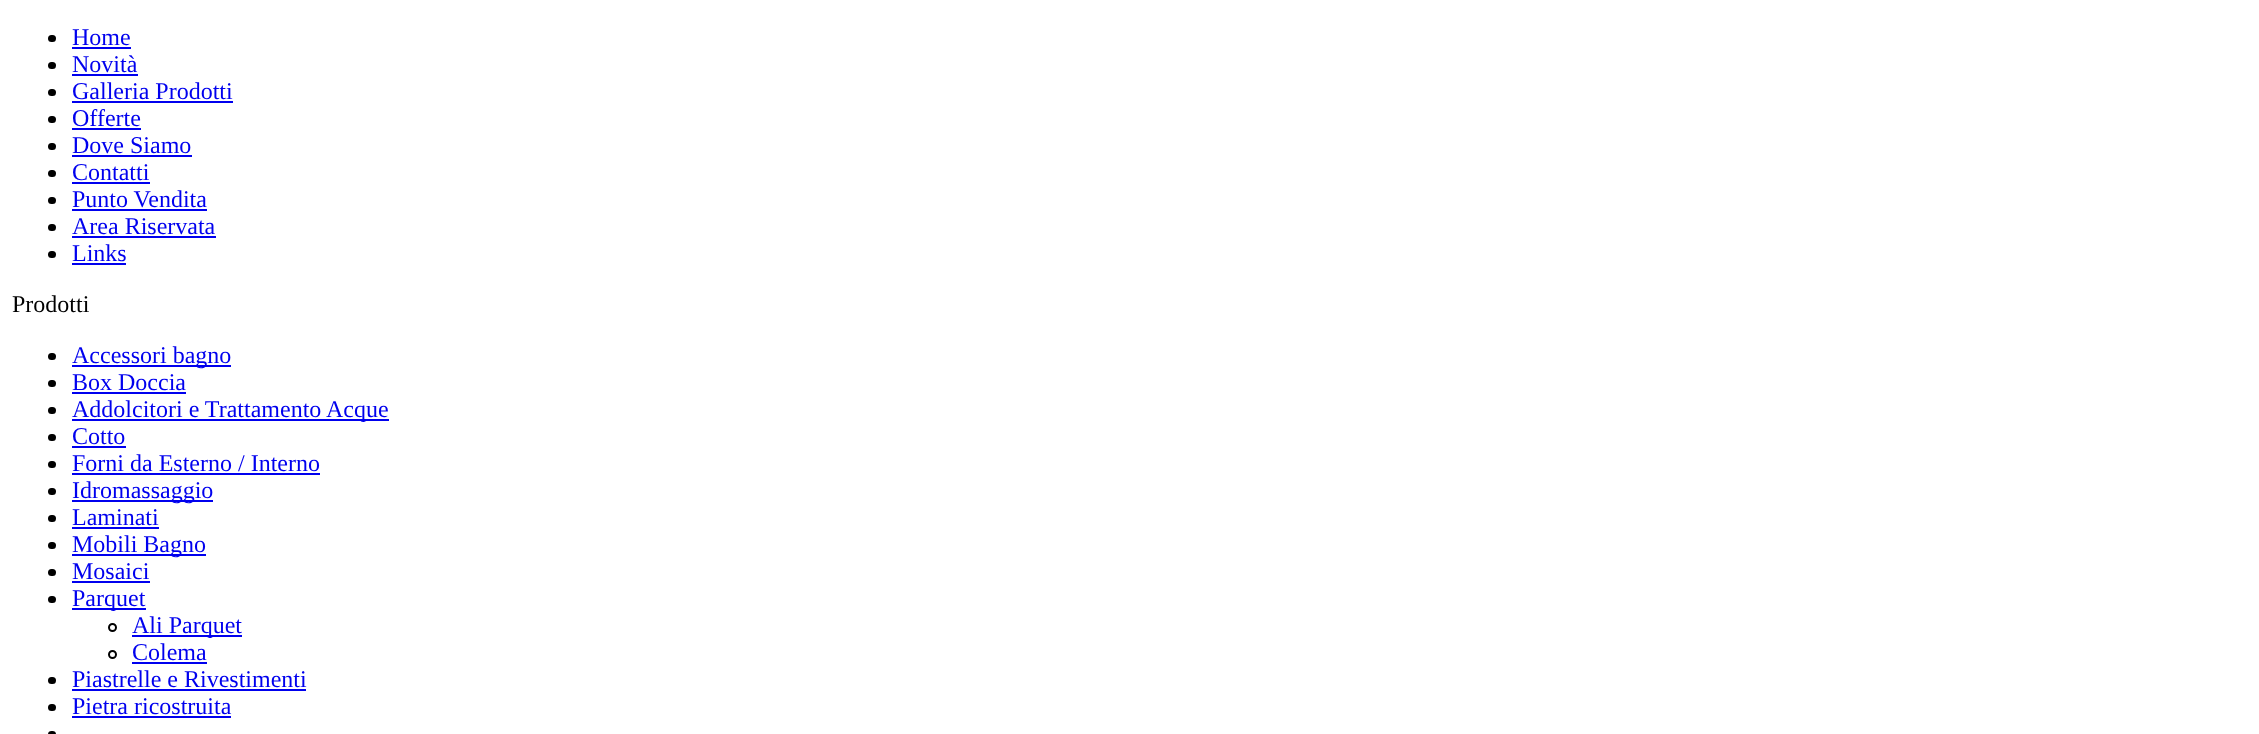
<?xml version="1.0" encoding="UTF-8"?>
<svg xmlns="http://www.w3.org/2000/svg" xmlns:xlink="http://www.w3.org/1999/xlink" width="2259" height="734">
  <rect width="100%" height="100%" fill="#ffffff" />
  <rect x="48" y="35" width="8" height="7" rx="3.5" fill="#000000" />
  <rect x="72" y="47" width="59" height="2" fill="#0000ee" />
  <rect x="48" y="62" width="8" height="7" rx="3.5" fill="#000000" />
  <rect x="72" y="74" width="66" height="2" fill="#0000ee" />
  <rect x="48" y="89" width="8" height="7" rx="3.5" fill="#000000" />
  <rect x="72" y="101" width="161" height="2" fill="#0000ee" />
  <rect x="48" y="116" width="8" height="7" rx="3.5" fill="#000000" />
  <rect x="72" y="128" width="69" height="2" fill="#0000ee" />
  <rect x="48" y="143" width="8" height="7" rx="3.5" fill="#000000" />
  <rect x="72" y="155" width="120" height="2" fill="#0000ee" />
  <rect x="48" y="170" width="8" height="7" rx="3.5" fill="#000000" />
  <rect x="72" y="182" width="78" height="2" fill="#0000ee" />
  <rect x="48" y="197" width="8" height="7" rx="3.5" fill="#000000" />
  <rect x="72" y="209" width="135" height="2" fill="#0000ee" />
  <rect x="48" y="224" width="8" height="7" rx="3.5" fill="#000000" />
  <rect x="72" y="236" width="144" height="2" fill="#0000ee" />
  <rect x="48" y="251" width="8" height="7" rx="3.5" fill="#000000" />
  <rect x="72" y="263" width="54" height="2" fill="#0000ee" />
  <rect x="48" y="353" width="8" height="7" rx="3.5" fill="#000000" />
  <rect x="72" y="365" width="159" height="2" fill="#0000ee" />
  <rect x="48" y="380" width="8" height="7" rx="3.5" fill="#000000" />
  <rect x="72" y="392" width="114" height="2" fill="#0000ee" />
  <rect x="48" y="407" width="8" height="7" rx="3.5" fill="#000000" />
  <rect x="72" y="419" width="317" height="2" fill="#0000ee" />
  <rect x="48" y="434" width="8" height="7" rx="3.5" fill="#000000" />
  <rect x="72" y="446" width="54" height="2" fill="#0000ee" />
  <rect x="48" y="461" width="8" height="7" rx="3.5" fill="#000000" />
  <rect x="72" y="473" width="248" height="2" fill="#0000ee" />
  <rect x="48" y="488" width="8" height="7" rx="3.5" fill="#000000" />
  <rect x="72" y="500" width="141" height="2" fill="#0000ee" />
  <rect x="48" y="515" width="8" height="7" rx="3.5" fill="#000000" />
  <rect x="72" y="527" width="87" height="2" fill="#0000ee" />
  <rect x="48" y="542" width="8" height="7" rx="3.5" fill="#000000" />
  <rect x="72" y="554" width="134" height="2" fill="#0000ee" />
  <rect x="48" y="569" width="8" height="7" rx="3.5" fill="#000000" />
  <rect x="72" y="581" width="78" height="2" fill="#0000ee" />
  <rect x="48" y="596" width="8" height="7" rx="3.5" fill="#000000" />
  <rect x="72" y="608" width="74" height="2" fill="#0000ee" />
  <circle cx="112.5" cy="627.5" r="3.5" fill="none" stroke="#000000" stroke-width="2" />
  <rect x="132" y="635" width="110" height="2" fill="#0000ee" />
  <circle cx="112.5" cy="654.5" r="3.5" fill="none" stroke="#000000" stroke-width="2" />
  <rect x="132" y="662" width="75" height="2" fill="#0000ee" />
  <rect x="48" y="677" width="8" height="7" rx="3.5" fill="#000000" />
  <rect x="72" y="689" width="234" height="2" fill="#0000ee" />
  <rect x="48" y="704" width="8" height="7" rx="3.5" fill="#000000" />
  <rect x="72" y="716" width="159" height="2" fill="#0000ee" />
  <rect x="48" y="731" width="8" height="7" rx="3.5" fill="#000000" />
  <text x="72" y="45" style="font-family: Liberation Serif; font-size: 24px; fill: #0000ee">Home</text>
  <text x="72" y="72" style="font-family: Liberation Serif; font-size: 24px; fill: #0000ee">Novità</text>
  <text x="72" y="99" style="font-family: Liberation Serif; font-size: 24px; fill: #0000ee">Galleria Prodotti</text>
  <text x="72" y="126" style="font-family: Liberation Serif; font-size: 24px; fill: #0000ee">Offerte</text>
  <text x="72" y="153" style="font-family: Liberation Serif; font-size: 24px; fill: #0000ee">Dove Siamo</text>
  <text x="72" y="180" style="font-family: Liberation Serif; font-size: 24px; fill: #0000ee">Contatti</text>
  <text x="72" y="207" style="font-family: Liberation Serif; font-size: 24px; fill: #0000ee">Punto Vendita</text>
  <text x="72" y="234" style="font-family: Liberation Serif; font-size: 24px; fill: #0000ee">Area Riservata</text>
  <text x="72" y="261" style="font-family: Liberation Serif; font-size: 24px; fill: #0000ee">Links</text>
  <text x="12" y="312" style="font-family: Liberation Serif; font-size: 24px; fill: #000000">Prodotti</text>
  <text x="72" y="363" style="font-family: Liberation Serif; font-size: 24px; fill: #0000ee">Accessori bagno</text>
  <text x="72" y="390" style="font-family: Liberation Serif; font-size: 24px; fill: #0000ee">Box Doccia</text>
  <text x="72" y="417" style="font-family: Liberation Serif; font-size: 24px; fill: #0000ee">Addolcitori e Trattamento Acque</text>
  <text x="72" y="444" style="font-family: Liberation Serif; font-size: 24px; fill: #0000ee">Cotto</text>
  <text x="72" y="471" style="font-family: Liberation Serif; font-size: 24px; fill: #0000ee">Forni da Esterno / Interno</text>
  <text x="72" y="498" style="font-family: Liberation Serif; font-size: 24px; fill: #0000ee">Idromassaggio</text>
  <text x="72" y="525" style="font-family: Liberation Serif; font-size: 24px; fill: #0000ee">Laminati</text>
  <text x="72" y="552" style="font-family: Liberation Serif; font-size: 24px; fill: #0000ee">Mobili Bagno</text>
  <text x="72" y="579" style="font-family: Liberation Serif; font-size: 24px; fill: #0000ee">Mosaici</text>
  <text x="72" y="606" style="font-family: Liberation Serif; font-size: 24px; fill: #0000ee">Parquet</text>
  <text x="132" y="633" style="font-family: Liberation Serif; font-size: 24px; fill: #0000ee">Ali Parquet</text>
  <text x="132" y="660" style="font-family: Liberation Serif; font-size: 24px; fill: #0000ee">Colema</text>
  <text x="72" y="687" style="font-family: Liberation Serif; font-size: 24px; fill: #0000ee">Piastrelle e Rivestimenti</text>
  <text x="72" y="714" style="font-family: Liberation Serif; font-size: 24px; fill: #0000ee">Pietra ricostruita</text>
</svg>
